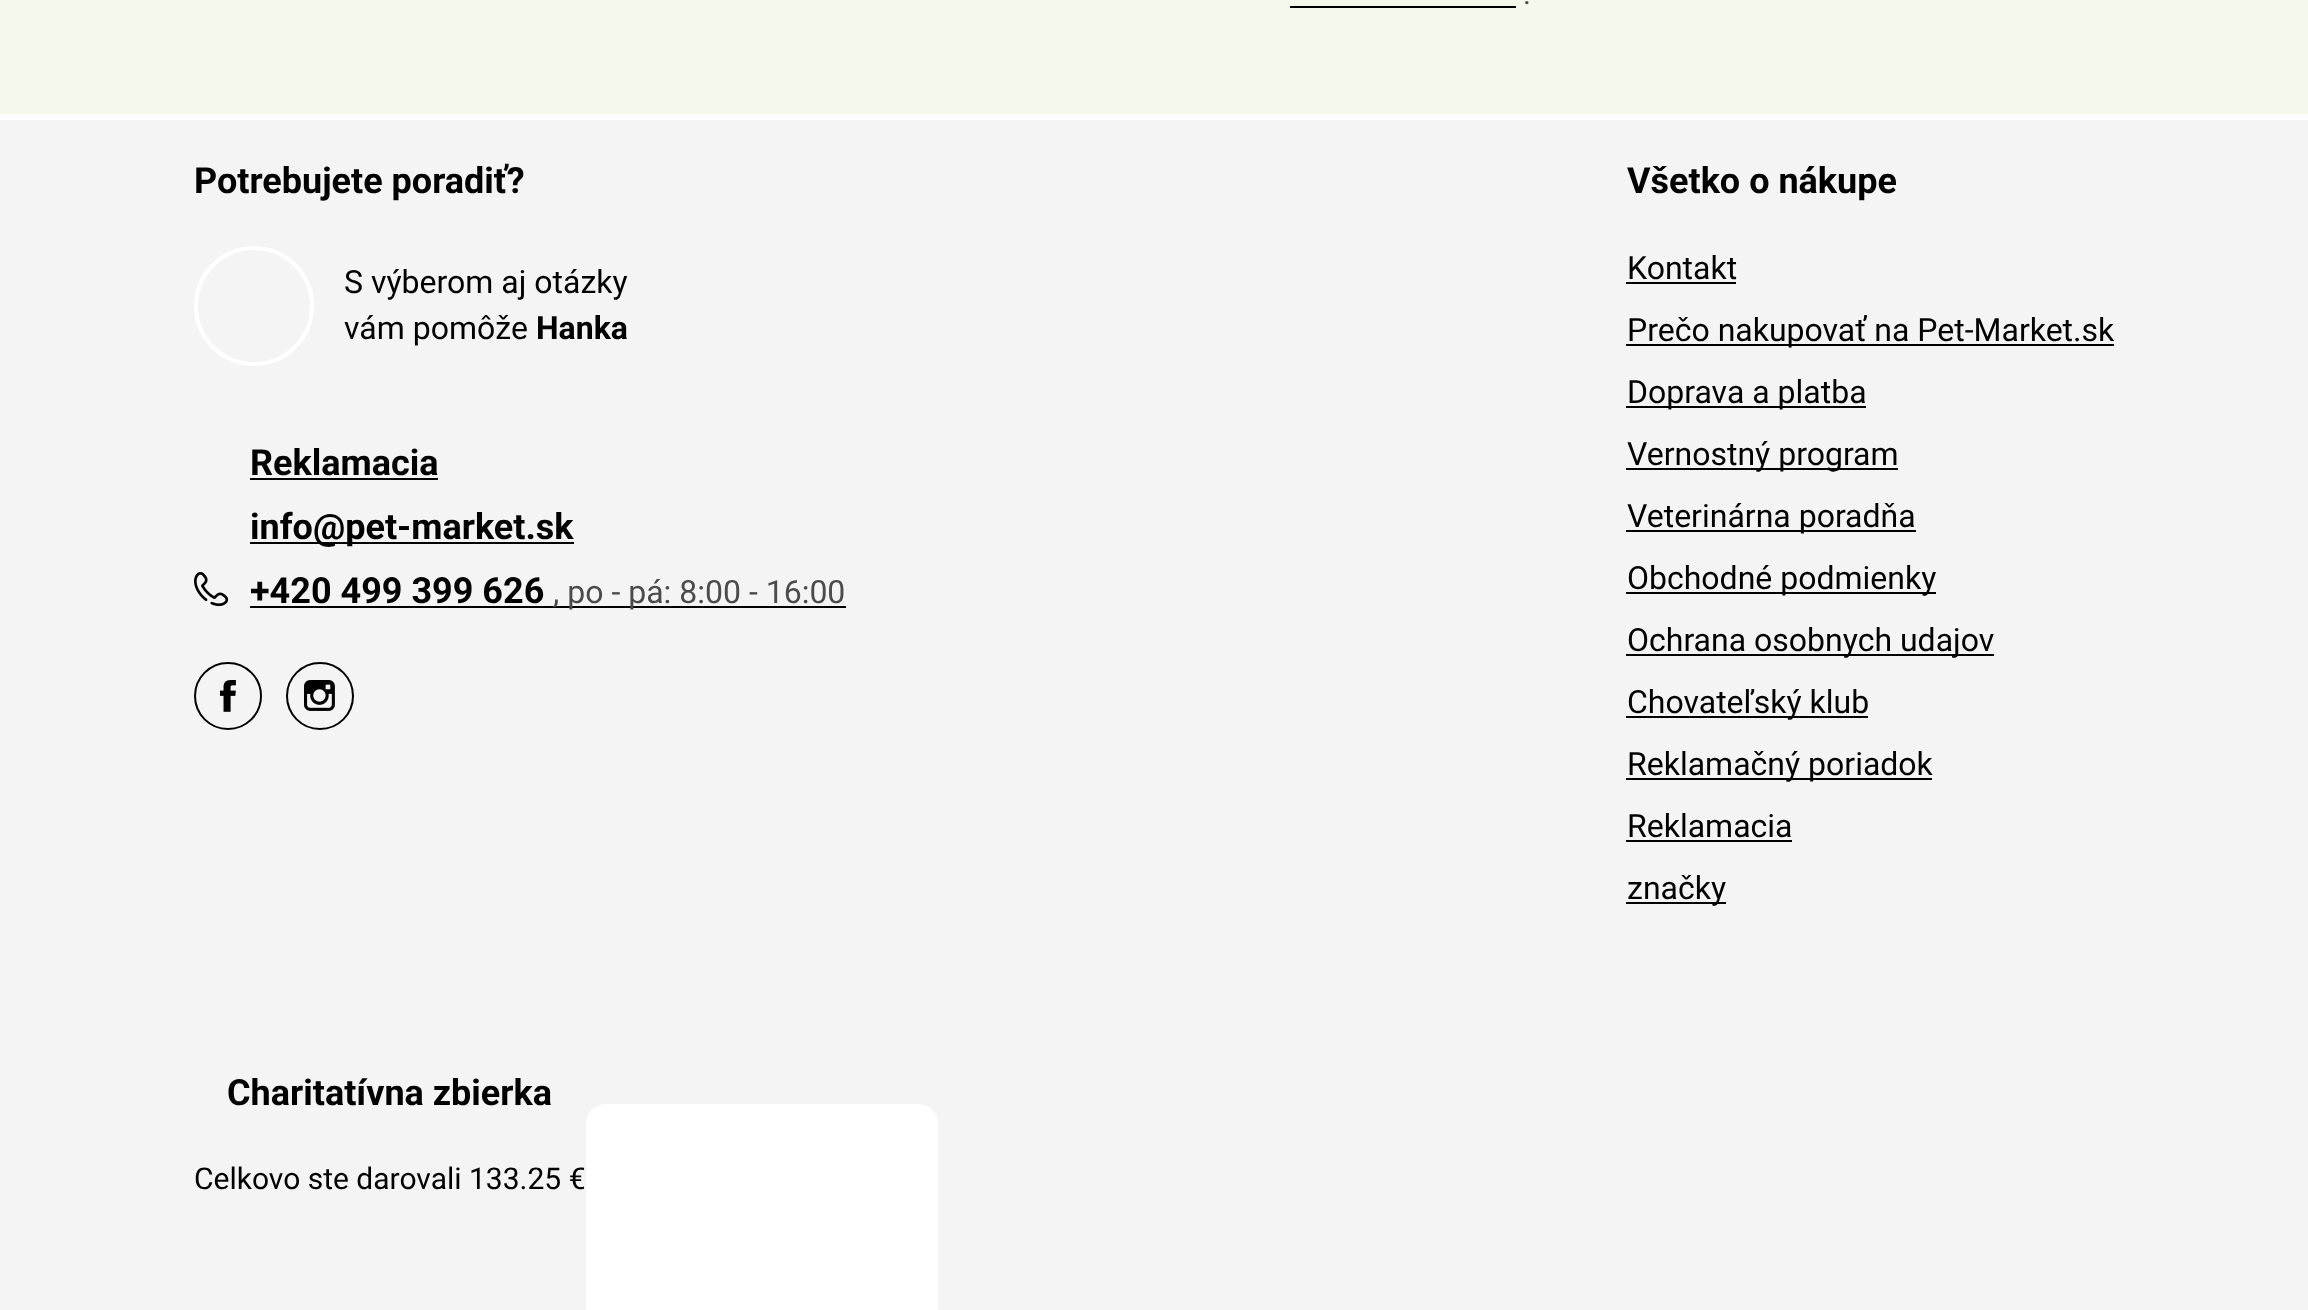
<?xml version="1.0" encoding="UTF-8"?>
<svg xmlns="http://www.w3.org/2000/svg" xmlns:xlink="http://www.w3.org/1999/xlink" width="2308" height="1310">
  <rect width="100%" height="100%" fill="#ffffff" />
  <rect width="2308" height="114" fill="#f4f9eb" />
  <rect x="1290" y="6" width="226" height="2" fill="#000000" />
  <rect y="120" width="2308" height="1190" fill="#f4f4f4" />
  <circle cx="254" cy="306" r="58" fill="none" stroke="#ffffff" stroke-width="4" />
  <rect x="250" y="478" width="188" height="2" fill="#000000" />
  <rect x="250" y="542" width="324" height="2" fill="#000000" />
  <image x="194" y="572" width="35" height="35" xlink:href="image1.png" />
  <rect x="250" y="606" width="596" height="2" fill="#000000" />
  <circle cx="228" cy="696" r="33" fill="none" stroke="#000000" stroke-width="2" />
  <image x="220" y="680" width="16" height="32" xlink:href="image2.png" />
  <circle cx="320" cy="696" r="33" fill="none" stroke="#000000" stroke-width="2" />
  <image x="304" y="680" width="31" height="31" xlink:href="image3.png" />
  <rect x="1626" y="282" width="110" height="2" fill="#000000" />
  <rect x="1626" y="344" width="488" height="2" fill="#000000" />
  <rect x="1626" y="406" width="240" height="2" fill="#000000" />
  <rect x="1626" y="468" width="272" height="2" fill="#000000" />
  <rect x="1626" y="530" width="290" height="2" fill="#000000" />
  <rect x="1626" y="592" width="310" height="2" fill="#000000" />
  <rect x="1626" y="654" width="368" height="2" fill="#000000" />
  <rect x="1626" y="716" width="242" height="2" fill="#000000" />
  <rect x="1626" y="778" width="306" height="2" fill="#000000" />
  <rect x="1626" y="840" width="166" height="2" fill="#000000" />
  <rect x="1626" y="902" width="100" height="2" fill="#000000" />
  <rect x="586" y="1104" width="352" height="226" rx="20" fill="#ffffff" />
  <text x="1523" y="4" style="font-family: Roboto; font-size: 30px; fill: #4b4b4b">.</text>
  <text x="194" y="193" style="font-family: Roboto; font-size: 36px; font-weight: bold; fill: #000000">Potrebujete poradiť?</text>
  <text x="344" y="293" style="font-family: Roboto; font-size: 32px; fill: #000000">S výberom aj otázky</text>
  <text x="344" y="339" style="font-family: Roboto; font-size: 32px; fill: #000000">vám pomôže</text>
  <text x="536" y="339" style="font-family: Roboto; font-size: 32px; font-weight: bold; fill: #000000">Hanka</text>
  <text x="250" y="475" style="font-family: Roboto; font-size: 36px; font-weight: bold; fill: #000000">Reklamacia</text>
  <text x="250" y="539" style="font-family: Roboto; font-size: 36px; font-weight: bold; fill: #000000">info@pet-market.sk</text>
  <text x="250" y="603" style="font-family: Roboto; font-size: 36px; font-weight: bold; fill: #000000">+420 499 399 626</text>
  <text x="553" y="603" style="font-family: Roboto; font-size: 32px; fill: #4b4b4b">, po - pá: 8:00 - 16:00</text>
  <text x="1627" y="193" style="font-family: Roboto; font-size: 36px; font-weight: bold; fill: #000000">Všetko o nákupe</text>
  <text x="1627" y="279" style="font-family: Roboto; font-size: 32px; fill: #000000">Kontakt</text>
  <text x="1627" y="341" style="font-family: Roboto; font-size: 32px; fill: #000000">Prečo nakupovať na Pet-Market.sk</text>
  <text x="1627" y="403" style="font-family: Roboto; font-size: 32px; fill: #000000">Doprava a platba</text>
  <text x="1627" y="465" style="font-family: Roboto; font-size: 32px; fill: #000000">Vernostný program</text>
  <text x="1627" y="527" style="font-family: Roboto; font-size: 32px; fill: #000000">Veterinárna poradňa</text>
  <text x="1627" y="589" style="font-family: Roboto; font-size: 32px; fill: #000000">Obchodné podmienky</text>
  <text x="1627" y="651" style="font-family: Roboto; font-size: 32px; fill: #000000">Ochrana osobnych udajov</text>
  <text x="1627" y="713" style="font-family: Roboto; font-size: 32px; fill: #000000">Chovateľský klub</text>
  <text x="1627" y="775" style="font-family: Roboto; font-size: 32px; fill: #000000">Reklamačný poriadok</text>
  <text x="1627" y="837" style="font-family: Roboto; font-size: 32px; fill: #000000">Reklamacia</text>
  <text x="1627" y="899" style="font-family: Roboto; font-size: 32px; fill: #000000">značky</text>
  <text x="227" y="1105" style="font-family: Roboto; font-size: 36px; font-weight: bold; fill: #000000">Charitatívna zbierka</text>
  <text x="194" y="1189" style="font-family: Roboto; font-size: 30px; fill: #000000">Celkovo ste darovali 133.25 €</text>
</svg>
